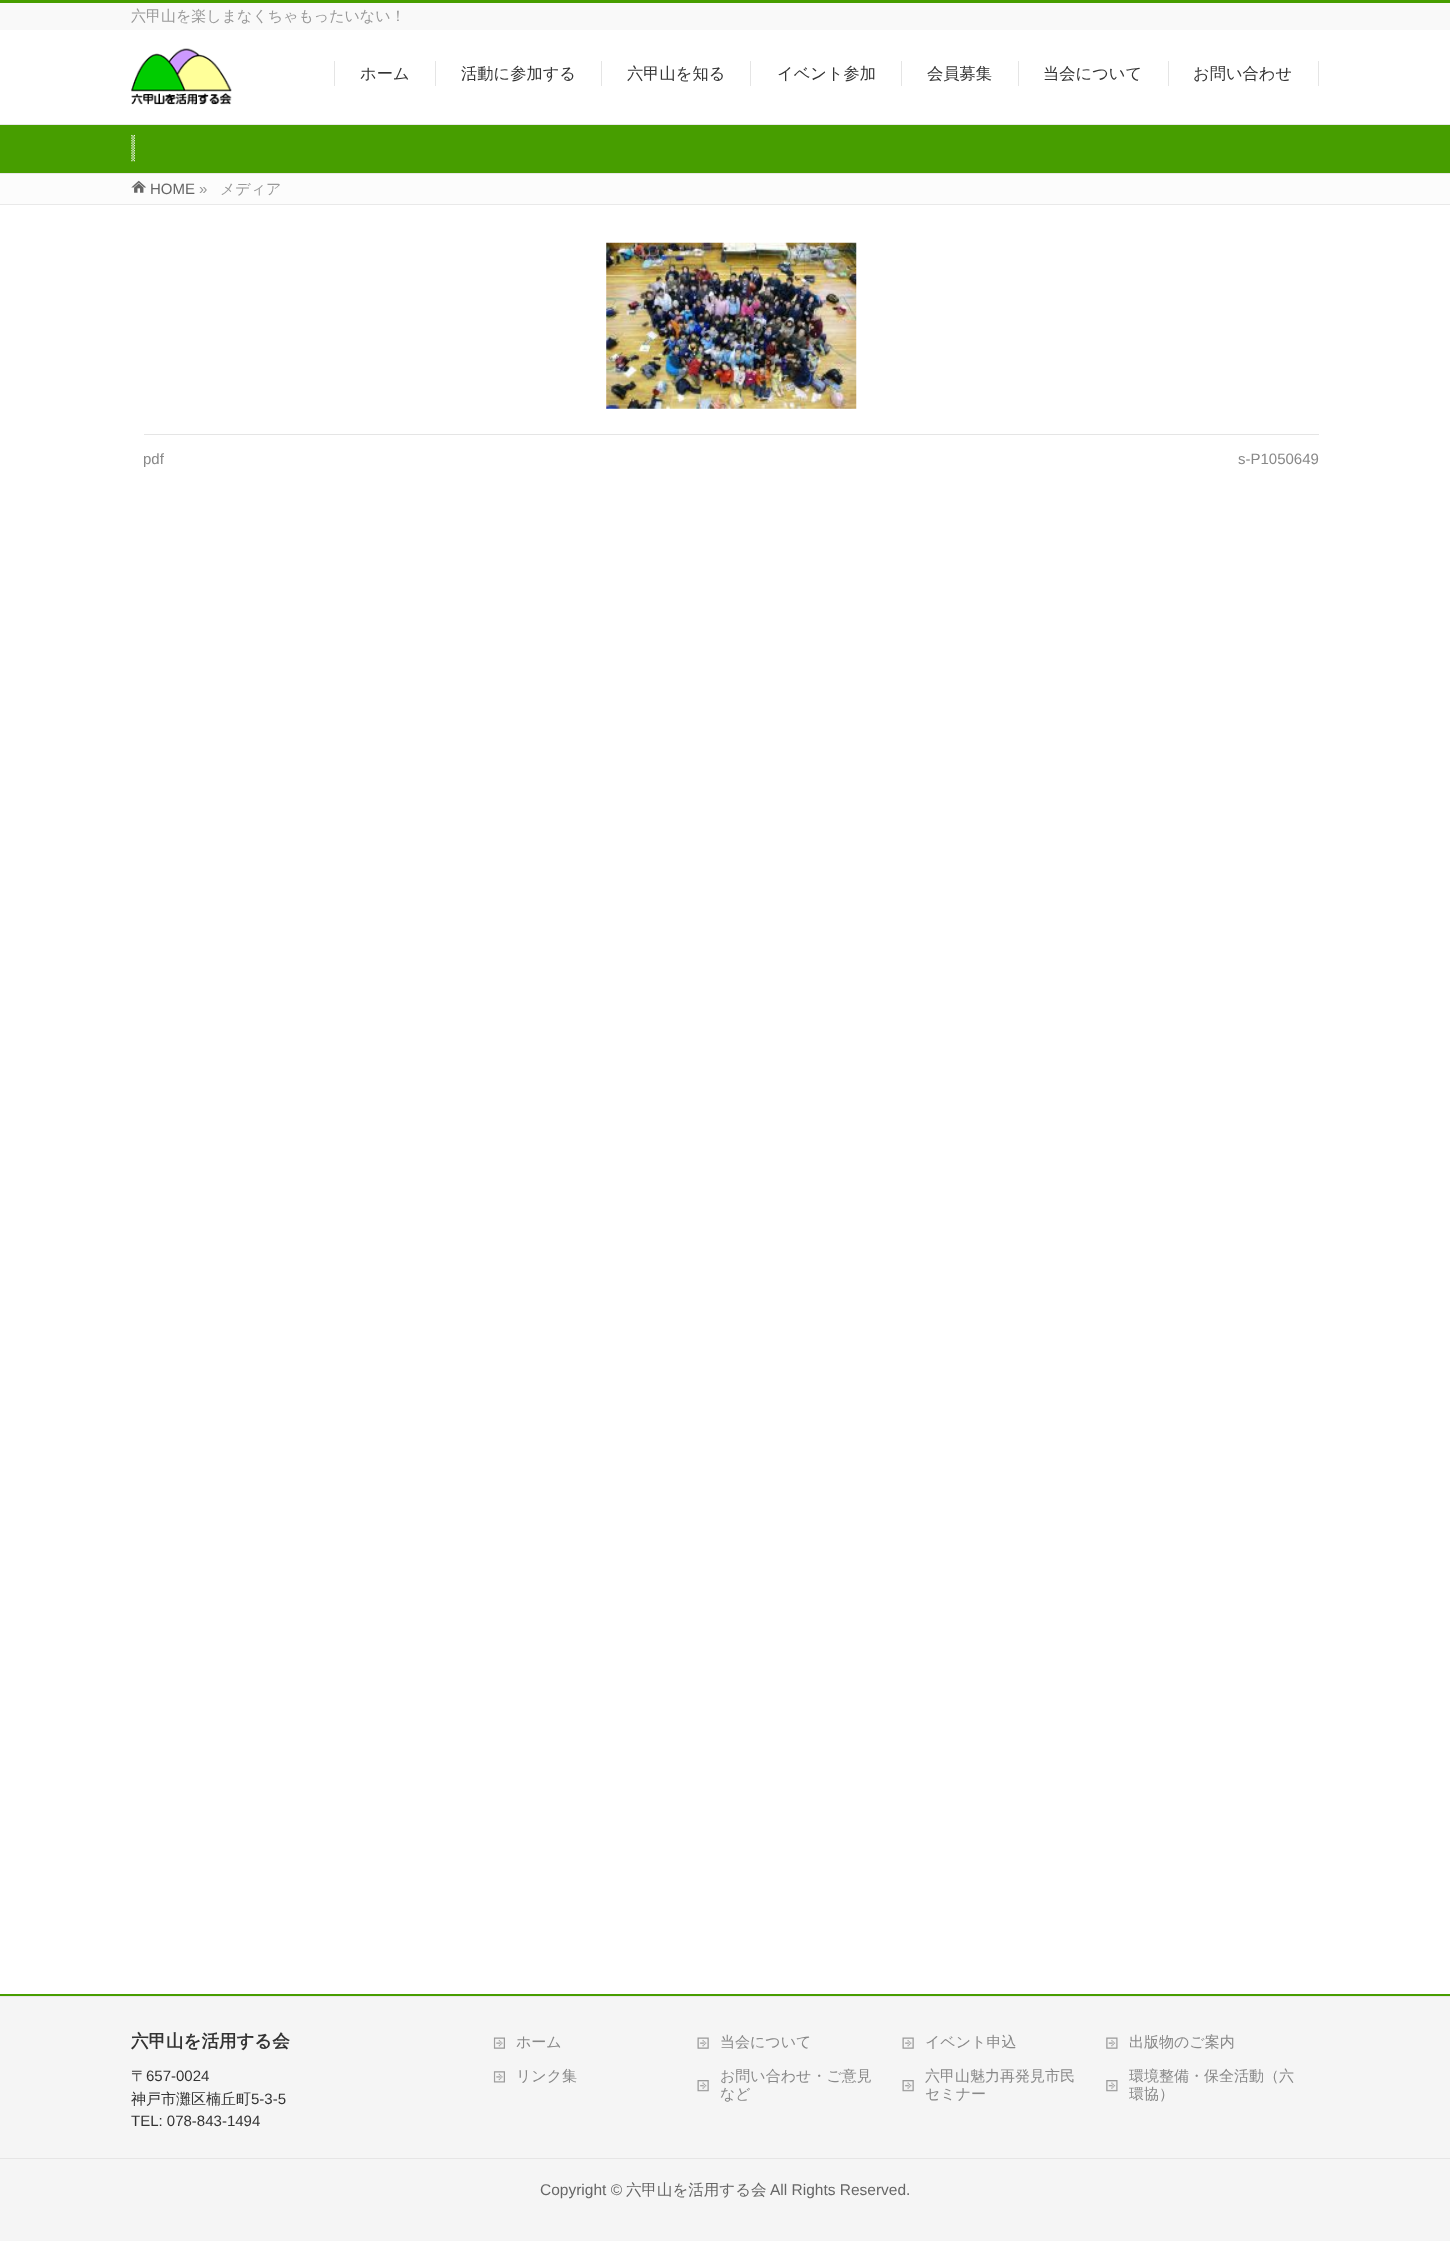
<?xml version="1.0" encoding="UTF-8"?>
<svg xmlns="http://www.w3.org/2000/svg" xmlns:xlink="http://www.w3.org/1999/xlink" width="1450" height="2242">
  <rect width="100%" height="100%" fill="#ffffff" />
  <rect y="3" width="1450" height="27" fill="#f9f9f9" />
  <rect width="1450" height="3" fill="#479e00" />
  <image x="131" y="48" width="101" height="57" xlink:href="image1.png" />
  <rect x="435" y="61" width="1" height="25" fill="#e5e5e5" />
  <rect x="334" y="61" width="1" height="25" fill="#e5e5e5" />
  <rect x="601" y="61" width="1" height="25" fill="#e5e5e5" />
  <rect x="750" y="61" width="1" height="25" fill="#e5e5e5" />
  <rect x="901" y="61" width="1" height="25" fill="#e5e5e5" />
  <rect x="1018" y="61" width="1" height="25" fill="#e5e5e5" />
  <rect x="1168" y="61" width="1" height="25" fill="#e5e5e5" />
  <rect x="1318" y="61" width="1" height="25" fill="#e5e5e5" />
  <rect y="125" width="1450" height="48" fill="#479e00" />
  <rect y="124" width="1450" height="1" fill="#e9e9e9" />
  <rect y="173" width="1450" height="1" fill="#e9e9e9" />
  <image x="131" y="135" width="4" height="27" xlink:href="image2.png" />
  <rect y="174" width="1450" height="30" fill="#fcfcfc" />
  <image x="131" y="180" width="16" height="13" xlink:href="image3.png" />
  <rect y="204" width="1450" height="1" fill="#e9e9e9" />
  <image x="606" y="242" width="251" height="167" xlink:href="image4.png" />
  <rect x="144" y="434" width="1175" height="1" fill="#e5e5e5" />
  <rect y="1994" width="1450" height="2" fill="#479e00" />
  <rect y="1996" width="1450" height="1" fill="#e9e9e9" />
  <rect y="1997" width="1450" height="161" fill="#f5f5f5" />
  <image x="493" y="2037" width="12" height="12" xlink:href="image5.png" />
  <image x="697" y="2037" width="12" height="12" xlink:href="image6.png" />
  <image x="902" y="2037" width="12" height="12" xlink:href="image6.png" />
  <image x="1106" y="2037" width="12" height="12" xlink:href="image7.png" />
  <image x="493" y="2071" width="12" height="12" xlink:href="image8.png" />
  <image x="697" y="2080" width="12" height="12" xlink:href="image9.png" />
  <image x="902" y="2080" width="12" height="12" xlink:href="image9.png" />
  <image x="1106" y="2080" width="12" height="12" xlink:href="image10.png" />
  <rect y="2159" width="1450" height="82" fill="#f5f5f5" />
  <rect y="2158" width="1450" height="1" fill="#e5e5e5" />
  <text x="131" y="21" style="font-family: WenQuanYi Zen Hei; font-size: 15px; font-weight: 500; fill: #999999">六甲山を楽しまなくちゃもったいない！</text>
  <text x="360" y="79" style="font-family: WenQuanYi Zen Hei; font-size: 16.25px; font-weight: 500; fill: #333333">ホーム</text>
  <text x="461" y="79" style="font-family: WenQuanYi Zen Hei; font-size: 16.25px; font-weight: 500; fill: #333333">活動に参加する</text>
  <text x="627" y="79" style="font-family: WenQuanYi Zen Hei; font-size: 16.25px; font-weight: 500; fill: #333333">六甲山を知る</text>
  <text x="777" y="79" style="font-family: WenQuanYi Zen Hei; font-size: 16.25px; font-weight: 500; fill: #333333">イベント参加</text>
  <text x="927" y="79" style="font-family: WenQuanYi Zen Hei; font-size: 16.25px; font-weight: 500; fill: #333333">会員募集</text>
  <text x="1043" y="79" style="font-family: WenQuanYi Zen Hei; font-size: 16.25px; font-weight: 500; fill: #333333">当会について</text>
  <text x="1193" y="79" style="font-family: WenQuanYi Zen Hei; font-size: 16.25px; font-weight: 500; fill: #333333">お問い合わせ</text>
  <text x="150" y="194" style="font-family: Liberation Sans; font-size: 15px; fill: #666666">HOME</text>
  <text x="199" y="194" style="font-family: Liberation Sans; font-size: 15px; fill: #999999">»</text>
  <text x="220" y="194" style="font-family: WenQuanYi Zen Hei; font-size: 15px; font-weight: 500; fill: #999999">メディア</text>
  <text x="143" y="464" style="font-family: Liberation Sans; font-size: 15px; fill: #888888">pdf</text>
  <text x="1238" y="464" style="font-family: Liberation Sans; font-size: 15px; fill: #888888">s-P1050649</text>
  <text x="131" y="2047" style="font-family: WenQuanYi Zen Hei; font-size: 17.5px; font-weight: bold; fill: #333333">六甲山を活用する会</text>
  <text x="131" y="2081" style="font-family: WenQuanYi Zen Hei; font-size: 15px; font-weight: 500; fill: #333333">〒</text>
  <text x="146" y="2081" style="font-family: Liberation Sans; font-size: 15px; fill: #333333">657-0024</text>
  <text x="131" y="2104" style="font-family: WenQuanYi Zen Hei; font-size: 15px; font-weight: 500; fill: #333333">神戸市灘区楠丘町</text>
  <text x="251" y="2104" style="font-family: Liberation Sans; font-size: 15px; fill: #333333">5-3-5</text>
  <text x="131" y="2126" style="font-family: Liberation Sans; font-size: 15px; fill: #333333">TEL: 078-843-1494</text>
  <text x="516" y="2047" style="font-family: WenQuanYi Zen Hei; font-size: 15px; font-weight: 500; fill: #888888">ホーム</text>
  <text x="720" y="2047" style="font-family: WenQuanYi Zen Hei; font-size: 15px; font-weight: 500; fill: #888888">当会について</text>
  <text x="925" y="2047" style="font-family: WenQuanYi Zen Hei; font-size: 15px; font-weight: 500; fill: #888888">イベント申込</text>
  <text x="1129" y="2047" style="font-family: WenQuanYi Zen Hei; font-size: 15px; font-weight: 500; fill: #888888">出版物のご案内</text>
  <text x="516" y="2081" style="font-family: WenQuanYi Zen Hei; font-size: 15px; font-weight: 500; fill: #888888">リンク集</text>
  <text x="720" y="2081" style="font-family: WenQuanYi Zen Hei; font-size: 15px; font-weight: 500; fill: #888888">お問い合わせ・ご意見</text>
  <text x="720" y="2099" style="font-family: WenQuanYi Zen Hei; font-size: 15px; font-weight: 500; fill: #888888">など</text>
  <text x="925" y="2081" style="font-family: WenQuanYi Zen Hei; font-size: 15px; font-weight: 500; fill: #888888">六甲山魅力再発見市民</text>
  <text x="925" y="2099" style="font-family: WenQuanYi Zen Hei; font-size: 15px; font-weight: 500; fill: #888888">セミナー</text>
  <text x="1129" y="2081" style="font-family: WenQuanYi Zen Hei; font-size: 15px; font-weight: 500; fill: #888888">環境整備・保全活動（六</text>
  <text x="1129" y="2099" style="font-family: WenQuanYi Zen Hei; font-size: 15px; font-weight: 500; fill: #888888">環協）</text>
  <text x="540" y="2195" style="font-family: Liberation Sans; font-size: 15.5px; fill: #666666">Copyright ©</text>
  <text x="626" y="2195" style="font-family: WenQuanYi Zen Hei; font-size: 15.5px; font-weight: 500; fill: #666666">六甲山を活用する会</text>
  <text x="770" y="2195" style="font-family: Liberation Sans; font-size: 15.5px; fill: #666666">All Rights Reserved.</text>
</svg>
